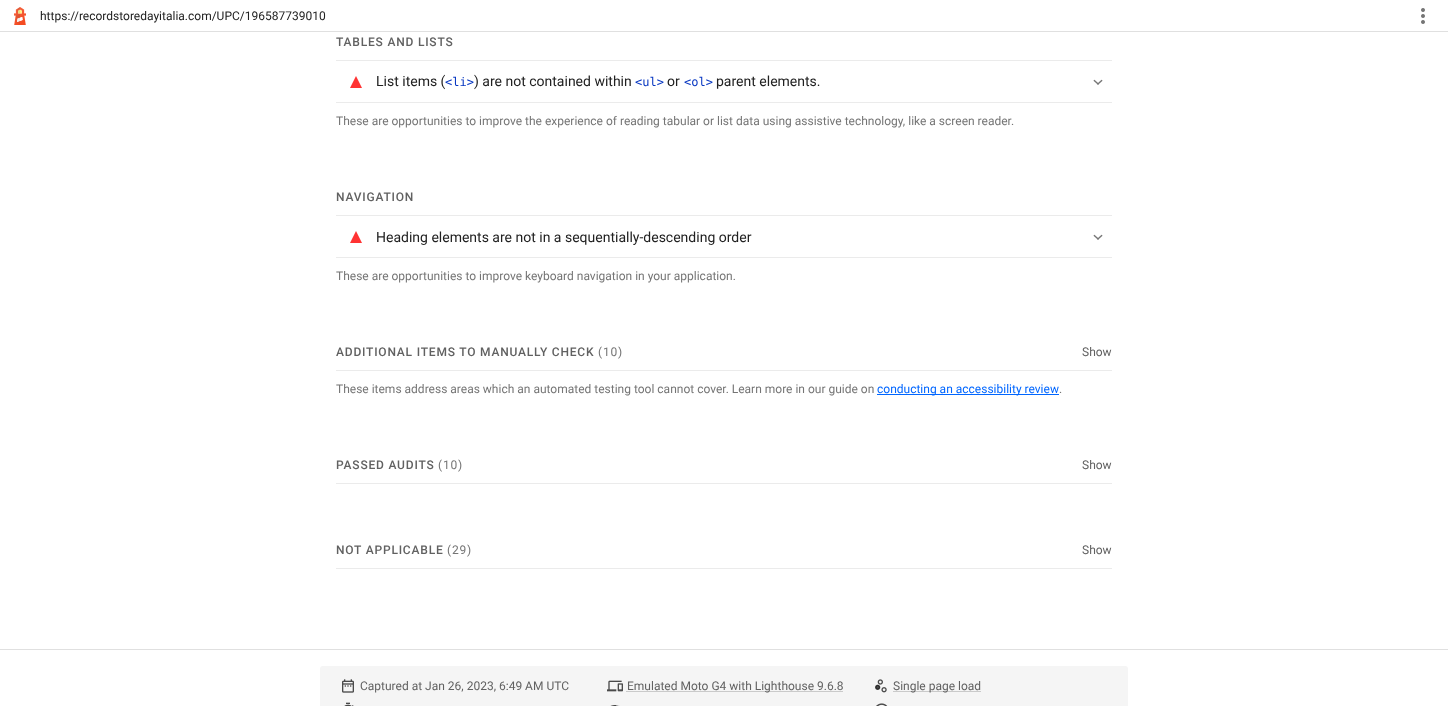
<?xml version="1.0" encoding="UTF-8"?>
<svg xmlns="http://www.w3.org/2000/svg" xmlns:xlink="http://www.w3.org/1999/xlink" width="1448" height="706">
  <rect width="100%" height="100%" fill="#ffffff" />
  <rect y="31" width="1448" height="1" fill="#e0e0e0" />
  <image x="14" y="7" width="12" height="18" xlink:href="image1.png" />
  <image x="1421" y="8" width="4" height="16" xlink:href="image2.png" />
  <rect y="649" width="1448" height="1" fill="#e0e0e0" />
  <rect x="336" y="60" width="776" height="1" fill="#ebebeb" />
  <rect x="336" y="102" width="776" height="1" fill="#ebebeb" />
  <path d="M 362 88 h -12 l 6 -12 z" fill="#ff3333" />
  <image x="1093" y="79" width="10" height="6" xlink:href="image3.png" />
  <rect x="336" y="215" width="776" height="1" fill="#ebebeb" />
  <rect x="336" y="257" width="776" height="1" fill="#ebebeb" />
  <path d="M 362 243 h -12 l 6 -12 z" fill="#ff3333" />
  <image x="1093" y="234" width="10" height="6" xlink:href="image3.png" />
  <rect x="336" y="370" width="776" height="1" fill="#ebebeb" />
  <rect x="877" y="394" width="182" height="1" fill="#0066ff" />
  <rect x="336" y="483" width="776" height="1" fill="#ebebeb" />
  <rect x="336" y="568" width="776" height="1" fill="#ebebeb" />
  <rect x="320" y="666" width="808" height="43" rx="3" fill="#f5f5f5" />
  <image x="342" y="679" width="12" height="14" xlink:href="image4.png" />
  <image x="607" y="680" width="16" height="12" xlink:href="image5.png" />
  <path d="M 626.5 691.5 h 216.5" fill="none" stroke="#9e9e9e" stroke-dasharray="1 1" />
  <image x="875" y="679" width="12" height="14" xlink:href="image6.png" />
  <path d="M 893.5 691.5 h 88" fill="none" stroke="#9e9e9e" stroke-dasharray="1 1" />
  <image x="344" y="702" width="10" height="4" xlink:href="image7.png" />
  <image x="610" y="705" width="10" height="1" xlink:href="image8.png" />
  <image x="876" y="703" width="12" height="3" xlink:href="image9.png" />
  <text x="40" y="20" style="font-family: Roboto; font-size: 12px; fill: #212121">https://recordstoredayitalia.com/UPC/196587739010</text>
  <text x="336" y="46" style="font-family: Roboto; font-size: 12px; font-weight: 500; letter-spacing: 0.8px; fill: #616161">TABLES AND LISTS</text>
  <text x="376" y="86" style="font-family: Roboto; font-size: 14px; fill: #212121">List items (</text>
  <text x="445" y="86" style="font-family: DejaVu Sans Mono; font-size: 12px; fill: #0938c2">&lt;li&gt;</text>
  <text x="474" y="86" style="font-family: Roboto; font-size: 14px; fill: #212121">) are not contained within</text>
  <text x="635" y="86" style="font-family: DejaVu Sans Mono; font-size: 12px; fill: #0938c2">&lt;ul&gt;</text>
  <text x="667" y="86" style="font-family: Roboto; font-size: 14px; fill: #212121">or</text>
  <text x="684" y="86" style="font-family: DejaVu Sans Mono; font-size: 12px; fill: #0938c2">&lt;ol&gt;</text>
  <text x="716" y="86" style="font-family: Roboto; font-size: 14px; fill: #212121">parent elements.</text>
  <text x="336" y="125" style="font-family: Roboto; font-size: 12px; fill: #757575">These are opportunities to improve the experience of reading tabular or list data using assistive technology, like a screen reader.</text>
  <text x="336" y="201" style="font-family: Roboto; font-size: 12px; font-weight: 500; letter-spacing: 0.8px; fill: #616161">NAVIGATION</text>
  <text x="376" y="242" style="font-family: Roboto; font-size: 14px; fill: #212121">Heading elements are not in a sequentially-descending order</text>
  <text x="336" y="280" style="font-family: Roboto; font-size: 12px; fill: #757575">These are opportunities to improve keyboard navigation in your application.</text>
  <text x="336" y="356" style="font-family: Roboto; font-size: 12px; font-weight: 500; letter-spacing: 0.8px; fill: #616161">ADDITIONAL ITEMS TO MANUALLY CHECK</text>
  <text x="598" y="356" style="font-family: Roboto; font-size: 12px; letter-spacing: 0.8px; fill: #757575">(10)</text>
  <text x="1082" y="356" style="font-family: Roboto; font-size: 12px; fill: #616161">Show</text>
  <text x="336" y="393" style="font-family: Roboto; font-size: 12px; fill: #757575">These items address areas which an automated testing tool cannot cover. Learn more in our guide on</text>
  <text x="877" y="393" style="font-family: Roboto; font-size: 12px; fill: #0066ff">conducting an accessibility review</text>
  <text x="1059" y="393" style="font-family: Roboto; font-size: 12px; fill: #757575">.</text>
  <text x="336" y="469" style="font-family: Roboto; font-size: 12px; font-weight: 500; letter-spacing: 0.8px; fill: #616161">PASSED AUDITS</text>
  <text x="438" y="469" style="font-family: Roboto; font-size: 12px; letter-spacing: 0.8px; fill: #757575">(10)</text>
  <text x="1082" y="469" style="font-family: Roboto; font-size: 12px; fill: #616161">Show</text>
  <text x="336" y="554" style="font-family: Roboto; font-size: 12px; font-weight: 500; letter-spacing: 0.8px; fill: #616161">NOT APPLICABLE</text>
  <text x="447" y="554" style="font-family: Roboto; font-size: 12px; letter-spacing: 0.8px; fill: #757575">(29)</text>
  <text x="1082" y="554" style="font-family: Roboto; font-size: 12px; fill: #616161">Show</text>
  <text x="360" y="690" style="font-family: Roboto; font-size: 12px; fill: #616161">Captured at Jan 26, 2023, 6:49 AM UTC</text>
  <text x="627" y="690" style="font-family: Roboto; font-size: 12px; fill: #616161">Emulated Moto G4 with Lighthouse 9.6.8</text>
  <text x="893" y="690" style="font-family: Roboto; font-size: 12px; fill: #616161">Single page load</text>
</svg>
